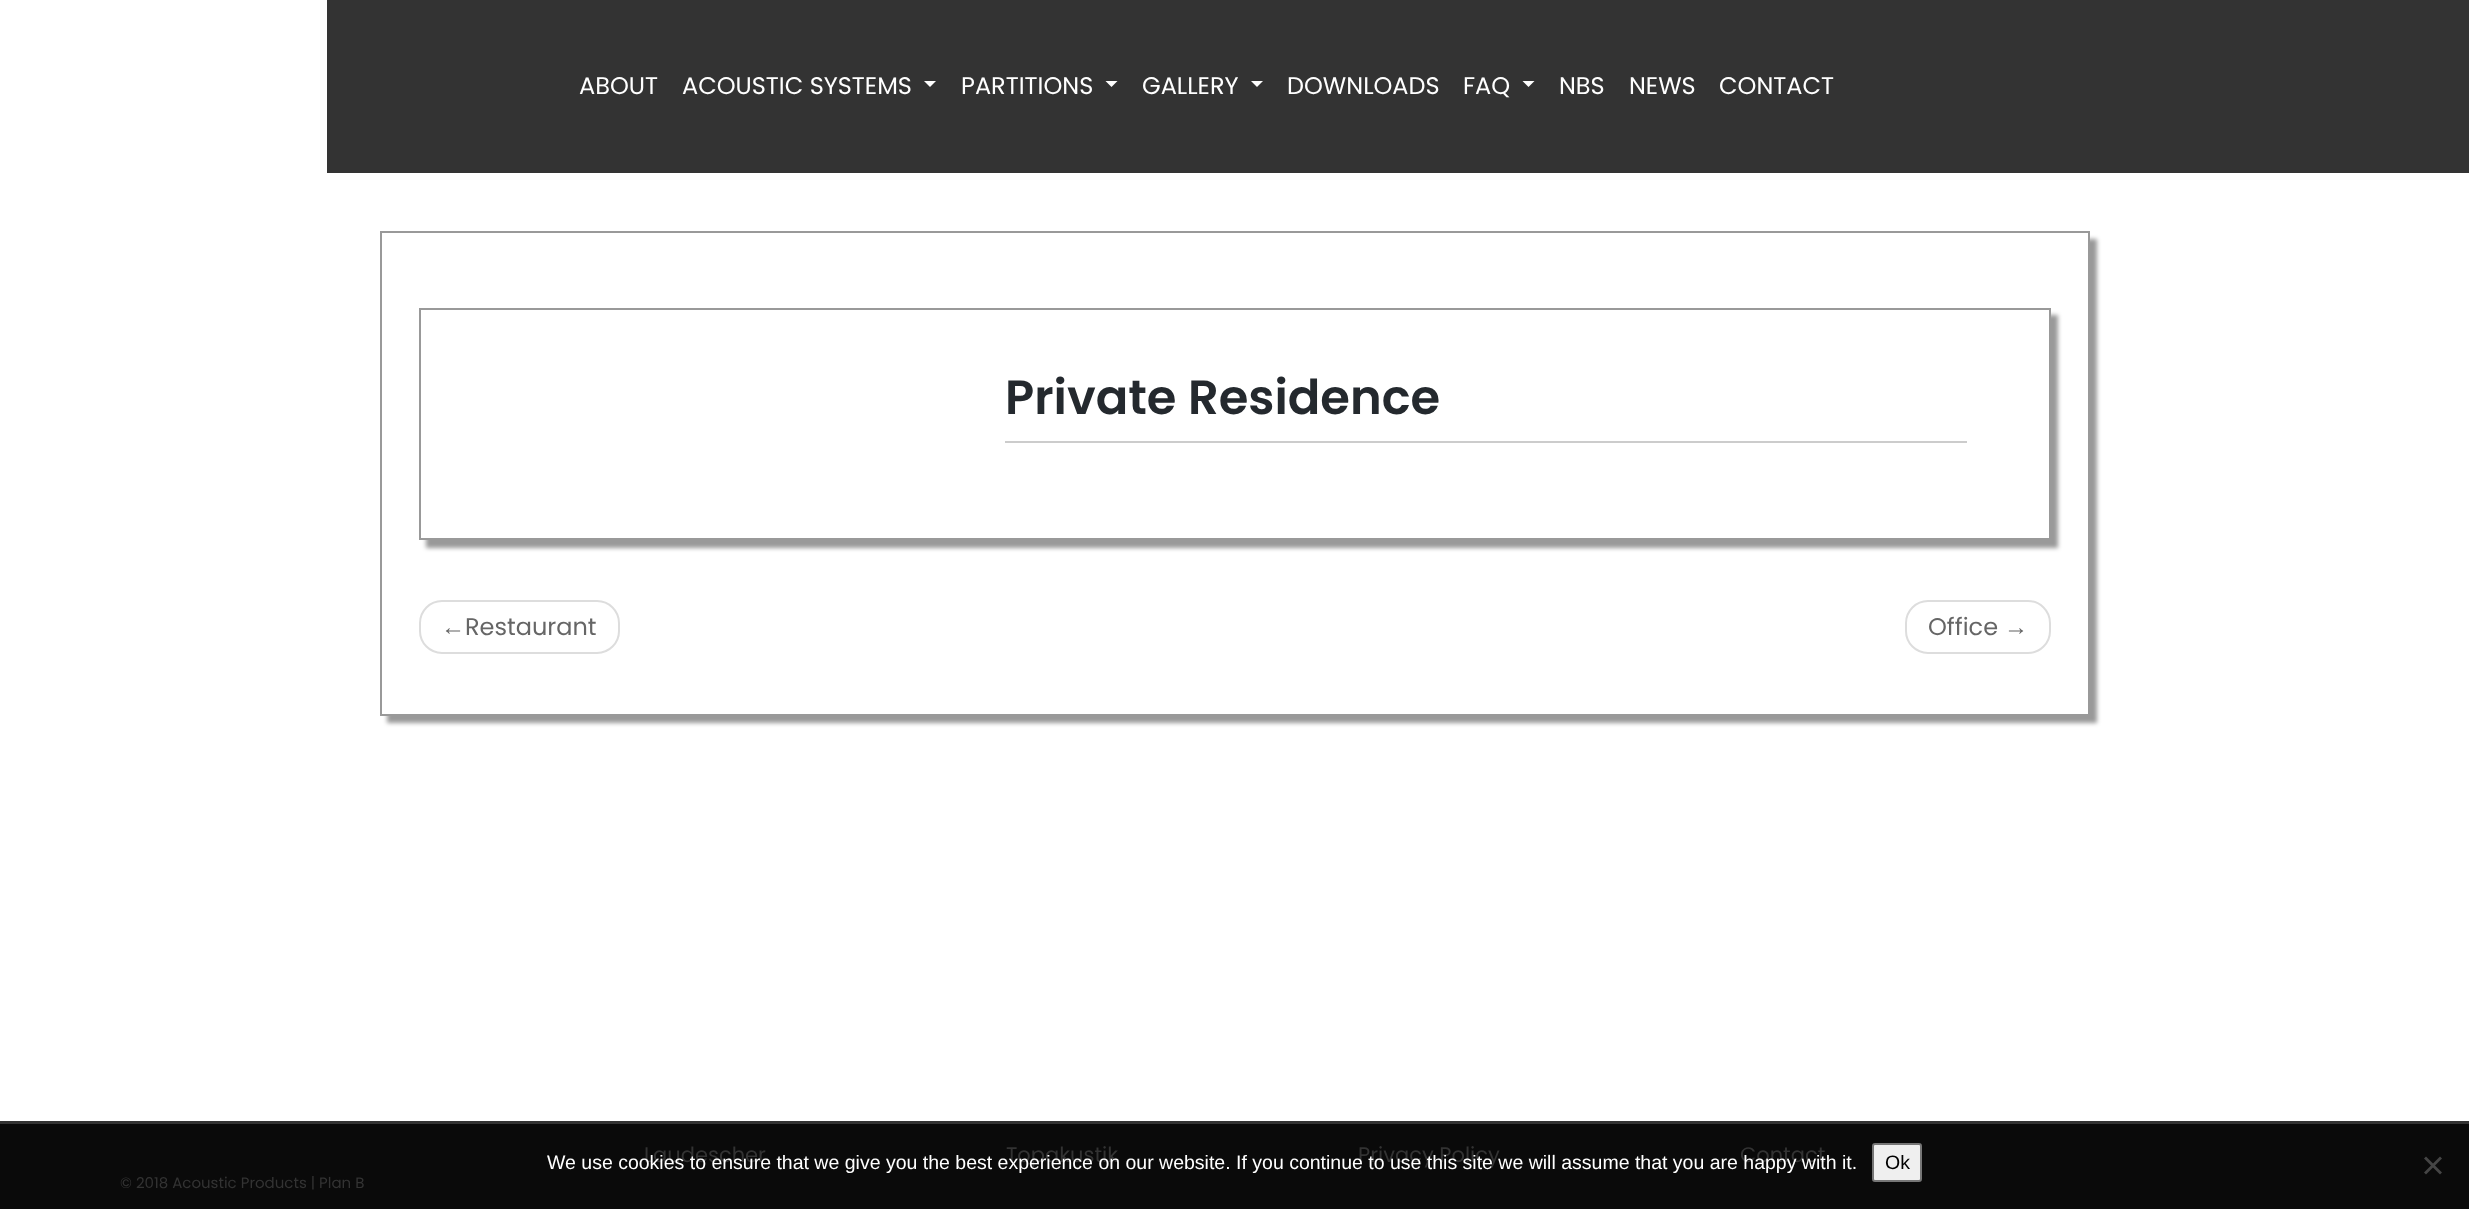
<?xml version="1.0" encoding="UTF-8"?>
<svg xmlns="http://www.w3.org/2000/svg" xmlns:xlink="http://www.w3.org/1999/xlink" width="2469" height="1209">
  <defs>
    <clipPath id="clip1"><path d="M 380 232 h 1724 v 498 h -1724 z m 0 -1 h 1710 v 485 h -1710 z" clip-rule="evenodd" /></clipPath>
    <clipPath id="clip2"><path d="M 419 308 h 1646 v 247 h -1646 z m 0 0 h 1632 v 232 h -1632 z" clip-rule="evenodd" /></clipPath>
  </defs>
  <rect width="100%" height="100%" fill="#ffffff" />
  <rect y="1121" width="2469" height="3" fill="#333333" />
  <rect x="327" width="2142" height="173" fill="#333333" />
  <path d="M 924 81 h 12 l -6 6 z" fill="#ffffff" />
  <path d="M 1105.5 81 h 12 l -6 6 z" fill="#ffffff" />
  <path d="M 1251 81 h 12 l -6 6 z" fill="#ffffff" />
  <path d="M 1522.5 81 h 12 l -6 6 z" fill="#ffffff" />
  <g clip-path="url(#clip1)">
    <rect x="387" y="239" width="1710" height="484" fill="#000000" fill-opacity="0.4" filter="blur(2px)" />
  </g>
  <rect x="384" y="236" width="1706" height="480" fill="#ffffff" fill-opacity="0.9" />
  <rect x="381" y="232" width="1708" height="483" fill="none" stroke="#000000" stroke-opacity="0.4" stroke-width="2" />
  <g clip-path="url(#clip2)">
    <rect x="426" y="315" width="1632" height="233" fill="#000000" fill-opacity="0.4" filter="blur(2px)" />
  </g>
  <rect x="2050" y="312" width="1" height="228" fill="#ffffff" fill-opacity="0.9" />
  <rect x="420" y="309" width="1630" height="230" fill="none" stroke="#000000" stroke-opacity="0.4" stroke-width="2" />
  <rect x="1005" y="441" width="962" height="2" fill="#cccccc" />
  <rect x="420" y="601" width="199" height="52" rx="22" fill="none" stroke="#dddddd" stroke-width="2" />
  <rect x="1906" y="601" width="144" height="52" rx="22" fill="none" stroke="#dddddd" stroke-width="2" />
  <rect y="1124" width="2469" height="85" fill="#0a0a0a" />
  <rect x="1873" y="1144" width="48" height="37" rx="2" fill="#efefef" stroke="#767676" stroke-width="2" />
  <path d="M 2440 1156.5 l 2 2 l -16 16 l -2 -2 z" fill="#454545" />
  <path d="M 2424 1158.5 l 2 -2 l 16 16 l -2 2 z" fill="#454545" />
  <text x="579" y="94" style="font-family: Poppins; font-size: 24px; fill: #ffffff">ABOUT</text>
  <text x="682" y="94" style="font-family: Poppins; font-size: 24px; fill: #ffffff">ACOUSTIC SYSTEMS</text>
  <text x="961" y="94" style="font-family: Poppins; font-size: 24px; fill: #ffffff">PARTITIONS</text>
  <text x="1142" y="94" style="font-family: Poppins; font-size: 24px; fill: #ffffff">GALLERY</text>
  <text x="1287" y="94" style="font-family: Poppins; font-size: 24px; fill: #ffffff">DOWNLOADS</text>
  <text x="1463" y="94" style="font-family: Poppins; font-size: 24px; fill: #ffffff">FAQ</text>
  <text x="1559" y="94" style="font-family: Poppins; font-size: 24px; fill: #ffffff">NBS</text>
  <text x="1629" y="94" style="font-family: Poppins; font-size: 24px; fill: #ffffff">NEWS</text>
  <text x="1719" y="94" style="font-family: Poppins; font-size: 24px; fill: #ffffff">CONTACT</text>
  <text x="1005" y="414" style="font-family: Poppins; font-size: 48px; font-weight: 600; fill: #24292e">Private Residence</text>
  <text x="441" y="635" style="font-family: Liberation Sans; font-size: 24px; fill: #666666">←</text>
  <text x="465" y="635" style="font-family: Poppins; font-size: 24px; fill: #666666">Restaurant</text>
  <text x="1928" y="635" style="font-family: Poppins; font-size: 24px; fill: #666666">Office</text>
  <text x="2004" y="635" style="font-family: Liberation Sans; font-size: 24px; fill: #666666">→</text>
  <text x="644" y="1162" style="font-family: Poppins; font-size: 21px; fill: #333333">Laudescher</text>
  <text x="1006" y="1162" style="font-family: Poppins; font-size: 21px; fill: #333333">Topakustik</text>
  <text x="1358" y="1162" style="font-family: Poppins; font-size: 21px; fill: #333333">Privacy Policy</text>
  <text x="1740" y="1162" style="font-family: Poppins; font-size: 21px; fill: #333333">Contact</text>
  <text x="120" y="1188" style="font-family: Poppins; font-size: 15px; fill: #333333">© 2018 Acoustic Products | Plan B</text>
  <text x="547" y="1169" style="font-family: Liberation Sans; font-size: 19.5px; fill: #ffffff">We use cookies to ensure that we give you the best experience on our website. If you continue to use this site we will assume that you are happy with it.</text>
  <text x="1885" y="1169" style="font-family: Liberation Sans; font-size: 19.5px; fill: #000000">Ok</text>
</svg>
